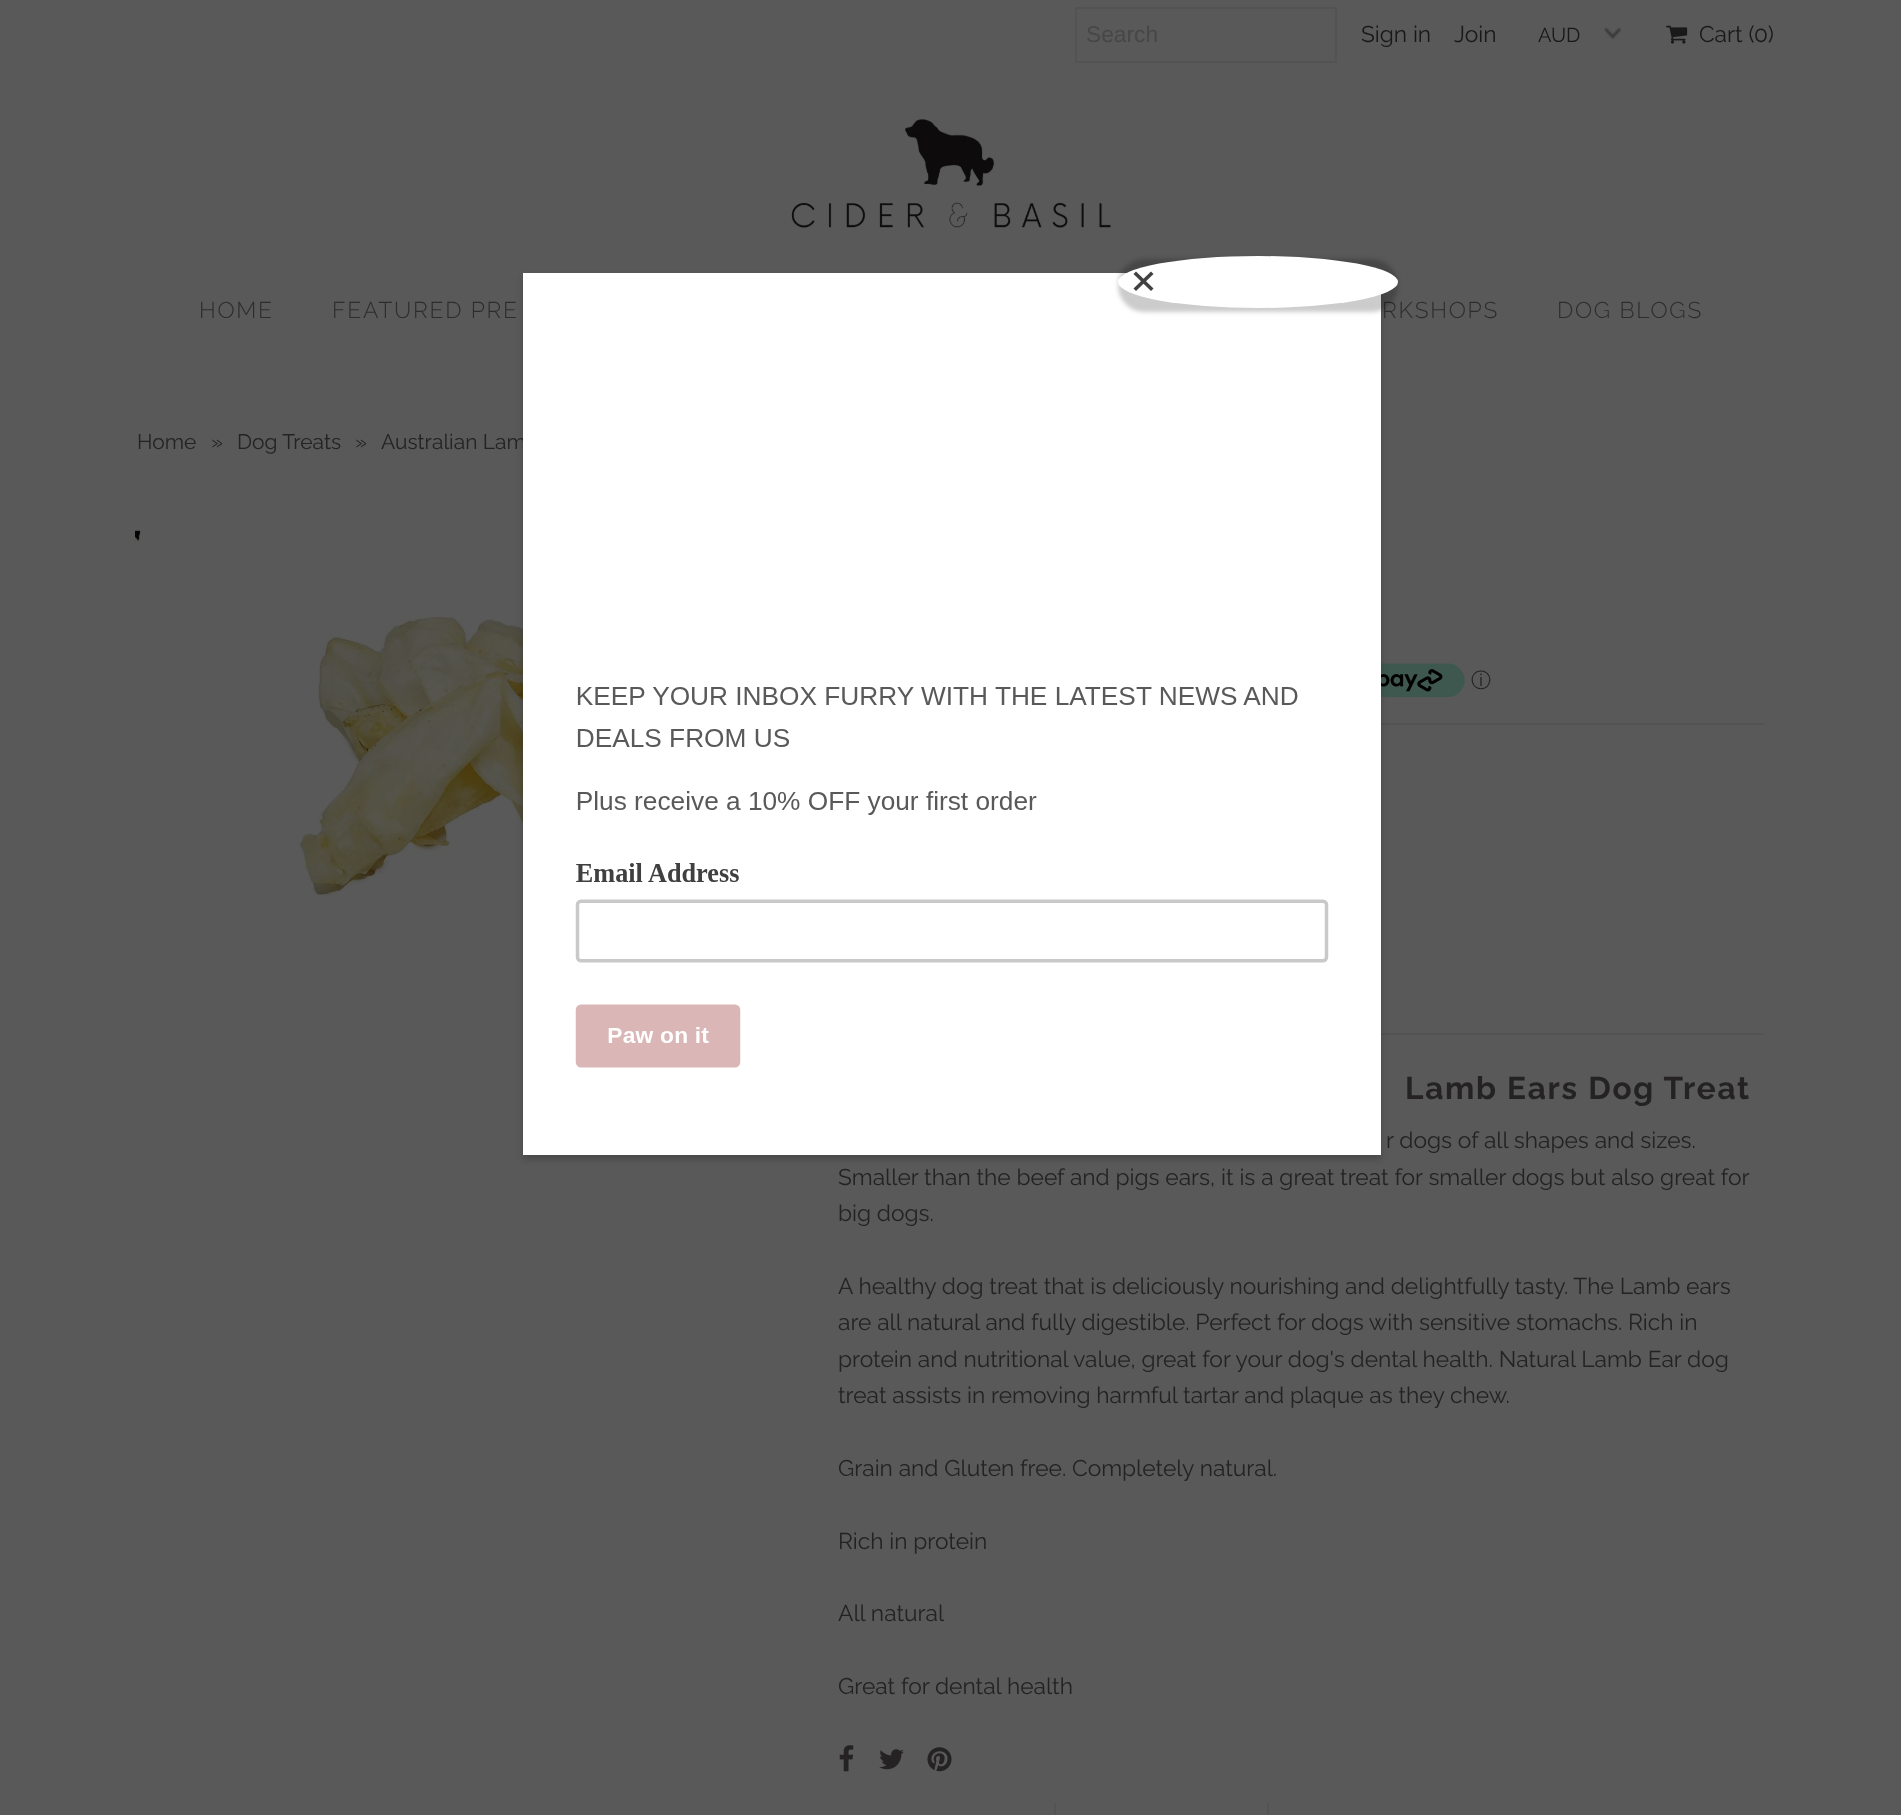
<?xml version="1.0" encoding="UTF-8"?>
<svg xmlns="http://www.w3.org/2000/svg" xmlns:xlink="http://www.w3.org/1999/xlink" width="1901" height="1815">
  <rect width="100%" height="100%" fill="#595959" />
  <rect x="1076" y="8" width="260" height="54" fill="none" stroke="#535353" stroke-width="2" />
  <image x="1604" y="27" width="17" height="12" xlink:href="image1.png" />
  <image x="1666" y="25" width="22" height="19" xlink:href="image2.png" />
  <image x="791" y="119" width="320" height="109" xlink:href="image3.png" />
  <image x="135" y="530" width="388" height="366" xlink:href="image4.png" />
  <image x="1381" y="663" width="84" height="35" xlink:href="image5.png" />
  <rect x="1381" y="723" width="383" height="2" fill="#535353" />
  <rect x="1381" y="1033" width="383" height="2" fill="#535353" />
  <image x="839" y="1745" width="15" height="27" xlink:href="image6.png" />
  <image x="879" y="1749" width="25" height="21" xlink:href="image7.png" />
  <image x="927" y="1747" width="25" height="25" xlink:href="image8.png" />
  <rect x="1054" y="1803" width="2" height="12" fill="#535353" />
  <rect x="1267" y="1803" width="2" height="12" fill="#535353" />
  <rect x="523" y="277" width="858" height="882" fill="#000000" fill-opacity="0.2" filter="blur(3.5px)" />
  <text x="1086" y="42" style="font-family: Liberation Sans; font-size: 22.75px; fill: #474747">Search</text>
  <text x="1361" y="42" style="font-family: Raleway; font-size: 22.75px; fill: #1a1919">Sign in</text>
  <text x="1454" y="42" style="font-family: Raleway; font-size: 22.75px; fill: #1a1919">Join</text>
  <text x="1538" y="42" style="font-family: Raleway; font-size: 20px; fill: #1a1919">AUD</text>
  <text x="1699" y="42" style="font-family: Raleway; font-size: 22.75px; fill: #1a1919">Cart (0)</text>
  <text x="199" y="318" style="font-family: Raleway; font-size: 22.75px; font-weight: 300; letter-spacing: 1.75px; fill: #2d2c2e">HOME</text>
  <text x="332" y="318" style="font-family: Raleway; font-size: 22.75px; font-weight: 300; letter-spacing: 1.75px; fill: #2d2c2e">FEATURED PRE</text>
  <text x="1382" y="318" style="font-family: Raleway; font-size: 22.75px; font-weight: 300; letter-spacing: 1.75px; fill: #2d2c2e">RKSHOPS</text>
  <text x="1557" y="318" style="font-family: Raleway; font-size: 22.75px; font-weight: 300; letter-spacing: 1.75px; fill: #2d2c2e">DOG BLOGS</text>
  <text x="137" y="449" style="font-family: Raleway; font-size: 21px; fill: #242222">Home</text>
  <text x="211" y="449" style="font-family: Raleway; font-size: 21px; fill: #242222">»</text>
  <text x="237" y="449" style="font-family: Raleway; font-size: 21px; fill: #242222">Dog Treats</text>
  <text x="355" y="449" style="font-family: Raleway; font-size: 21px; fill: #242222">»</text>
  <text x="381" y="449" style="font-family: Raleway; font-size: 21px; fill: #242222">Australian Lam</text>
  <text x="1471" y="687" style="font-family: WenQuanYi Zen Hei; font-size: 20px; font-weight: 500; fill: #242222">ⓘ</text>
  <text x="1405" y="1099" style="font-family: Raleway; font-size: 31.5px; font-weight: bold; letter-spacing: 1.75px; fill: #242222">Lamb Ears Dog Treat</text>
  <text x="1386" y="1148" style="font-family: Raleway; font-size: 22.75px; fill: #242222">r dogs of all shapes and sizes.</text>
  <text x="838" y="1185" style="font-family: Raleway; font-size: 22.75px; fill: #242222">Smaller than the beef and pigs ears, it is a great treat for smaller dogs but also great for</text>
  <text x="838" y="1221" style="font-family: Raleway; font-size: 22.75px; fill: #242222">big dogs.</text>
  <text x="838" y="1294" style="font-family: Raleway; font-size: 22.75px; fill: #242222">A healthy dog treat that is deliciously nourishing and delightfully tasty. The Lamb ears</text>
  <text x="838" y="1330" style="font-family: Raleway; font-size: 22.75px; fill: #242222">are all natural and fully digestible. Perfect for dogs with sensitive stomachs. Rich in</text>
  <text x="838" y="1367" style="font-family: Raleway; font-size: 22.75px; fill: #242222">protein and nutritional value, great for your dog's dental health. Natural Lamb Ear dog</text>
  <text x="838" y="1403" style="font-family: Raleway; font-size: 22.75px; fill: #242222">treat assists in removing harmful tartar and plaque as they chew.</text>
  <text x="838" y="1476" style="font-family: Raleway; font-size: 22.75px; fill: #242222">Grain and Gluten free. Completely natural.</text>
  <text x="838" y="1549" style="font-family: Raleway; font-size: 22.75px; fill: #242222">Rich in protein</text>
  <text x="838" y="1621" style="font-family: Raleway; font-size: 22.75px; fill: #242222">All natural</text>
  <text x="838" y="1694" style="font-family: Raleway; font-size: 22.75px; fill: #242222">Great for dental health</text>
  <image x="523" y="273" width="858" height="882" xlink:href="image9.png" />
  <rect x="1118" y="259" width="280" height="53" rx="26.5" fill="#000000" fill-opacity="0.2" filter="blur(2px)" />
  <ellipse cx="1258" cy="282" rx="140" ry="26" fill="#ffffff" />
  <path d="M 1151 271.5 l 2.5 2.5 l -17.5 17 l -2.5 -2.5 z" fill="#414141" />
  <path d="M 1133.5 274 l 2.5 -2.5 l 17.5 17 l -2.5 2.5 z" fill="#414141" />
</svg>
